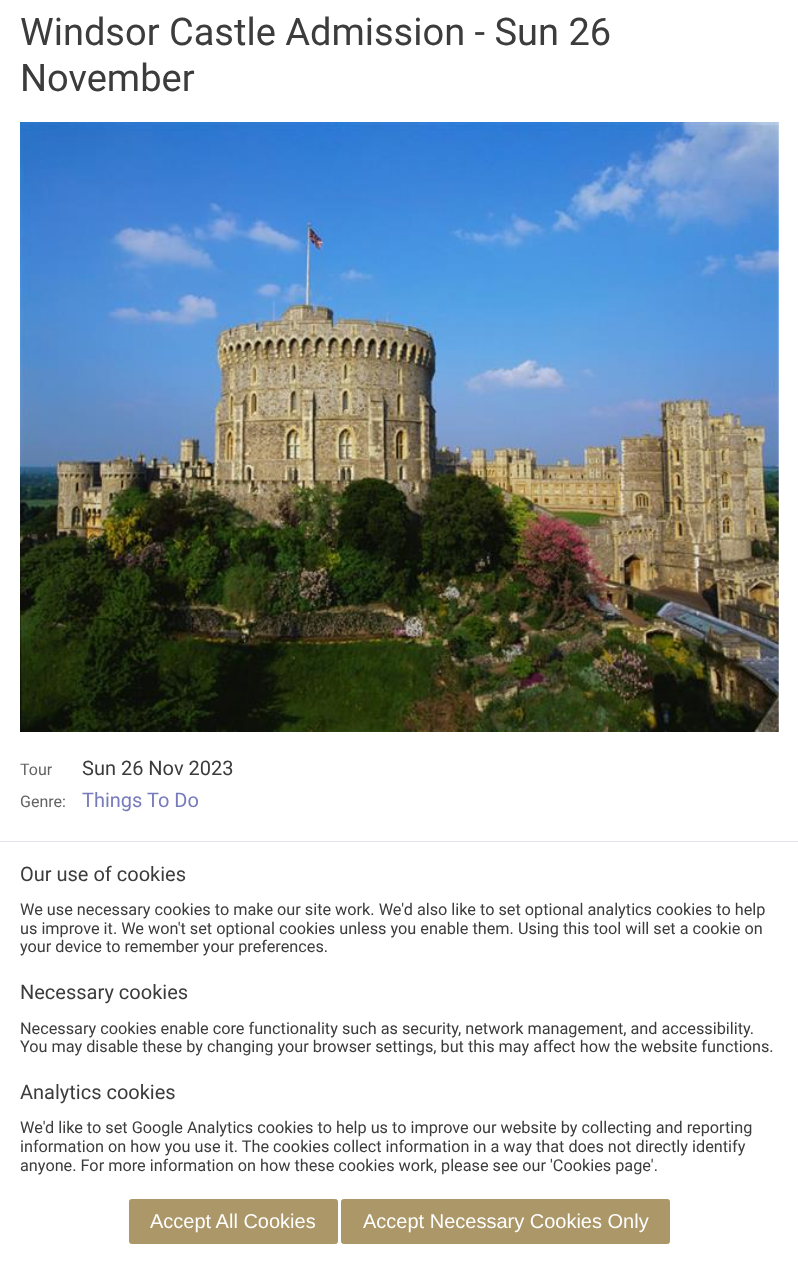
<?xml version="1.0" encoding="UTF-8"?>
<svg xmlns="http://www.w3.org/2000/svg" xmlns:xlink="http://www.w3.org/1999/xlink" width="798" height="1267">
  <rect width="100%" height="100%" fill="#ffffff" />
  <image x="20" y="122" width="759" height="610" xlink:href="image1.png" />
  <rect y="841" width="798" height="1" fill="#e2e5ed" />
  <rect x="129.5" y="1199.5" width="208" height="44" rx="2" fill="#ab9767" stroke="#ab9767" />
  <rect x="341.5" y="1199.5" width="328" height="44" rx="2" fill="#ab9767" stroke="#ab9767" />
  <text x="20" y="45" style="font-family: Roboto; font-size: 38px; fill: #3c3c3c">Windsor Castle Admission - Sun 26</text>
  <text x="20" y="91" style="font-family: Roboto; font-size: 38px; fill: #3c3c3c">November</text>
  <text x="20" y="775" style="font-family: Roboto; font-size: 16px; fill: #636363">Tour</text>
  <text x="82" y="775" style="font-family: Roboto; font-size: 20px; fill: #3c3c3c">Sun 26 Nov 2023</text>
  <text x="20" y="807" style="font-family: Roboto; font-size: 16px; fill: #636363">Genre:</text>
  <text x="82" y="807" style="font-family: Roboto; font-size: 20px; fill: #777bba">Things To Do</text>
  <text x="20" y="881" style="font-family: Roboto; font-size: 20px; fill: #3c3c3c">Our use of cookies</text>
  <text x="20" y="915" style="font-family: Roboto; font-size: 16.25px; fill: #3c3c3c">We use necessary cookies to make our site work. We'd also like to set optional analytics cookies to help</text>
  <text x="20" y="934" style="font-family: Roboto; font-size: 16.25px; fill: #3c3c3c">us improve it. We won't set optional cookies unless you enable them. Using this tool will set a cookie on</text>
  <text x="20" y="952" style="font-family: Roboto; font-size: 16.25px; fill: #3c3c3c">your device to remember your preferences.</text>
  <text x="20" y="999" style="font-family: Roboto; font-size: 20px; fill: #3c3c3c">Necessary cookies</text>
  <text x="20" y="1034" style="font-family: Roboto; font-size: 16.25px; fill: #3c3c3c">Necessary cookies enable core functionality such as security, network management, and accessibility.</text>
  <text x="20" y="1052" style="font-family: Roboto; font-size: 16.25px; fill: #3c3c3c">You may disable these by changing your browser settings, but this may affect how the website functions.</text>
  <text x="20" y="1099" style="font-family: Roboto; font-size: 20px; fill: #3c3c3c">Analytics cookies</text>
  <text x="20" y="1133" style="font-family: Roboto; font-size: 16.25px; fill: #3c3c3c">We'd like to set Google Analytics cookies to help us to improve our website by collecting and reporting</text>
  <text x="20" y="1152" style="font-family: Roboto; font-size: 16.25px; fill: #3c3c3c">information on how you use it. The cookies collect information in a way that does not directly identify</text>
  <text x="20" y="1171" style="font-family: Roboto; font-size: 16.25px; fill: #3c3c3c">anyone. For more information on how these cookies work, please see our 'Cookies page'.</text>
  <text x="150" y="1228" style="font-family: Liberation Sans; font-size: 20px; fill: #ffffff">Accept All Cookies</text>
  <text x="363" y="1228" style="font-family: Liberation Sans; font-size: 20px; fill: #ffffff">Accept Necessary Cookies Only</text>
</svg>
